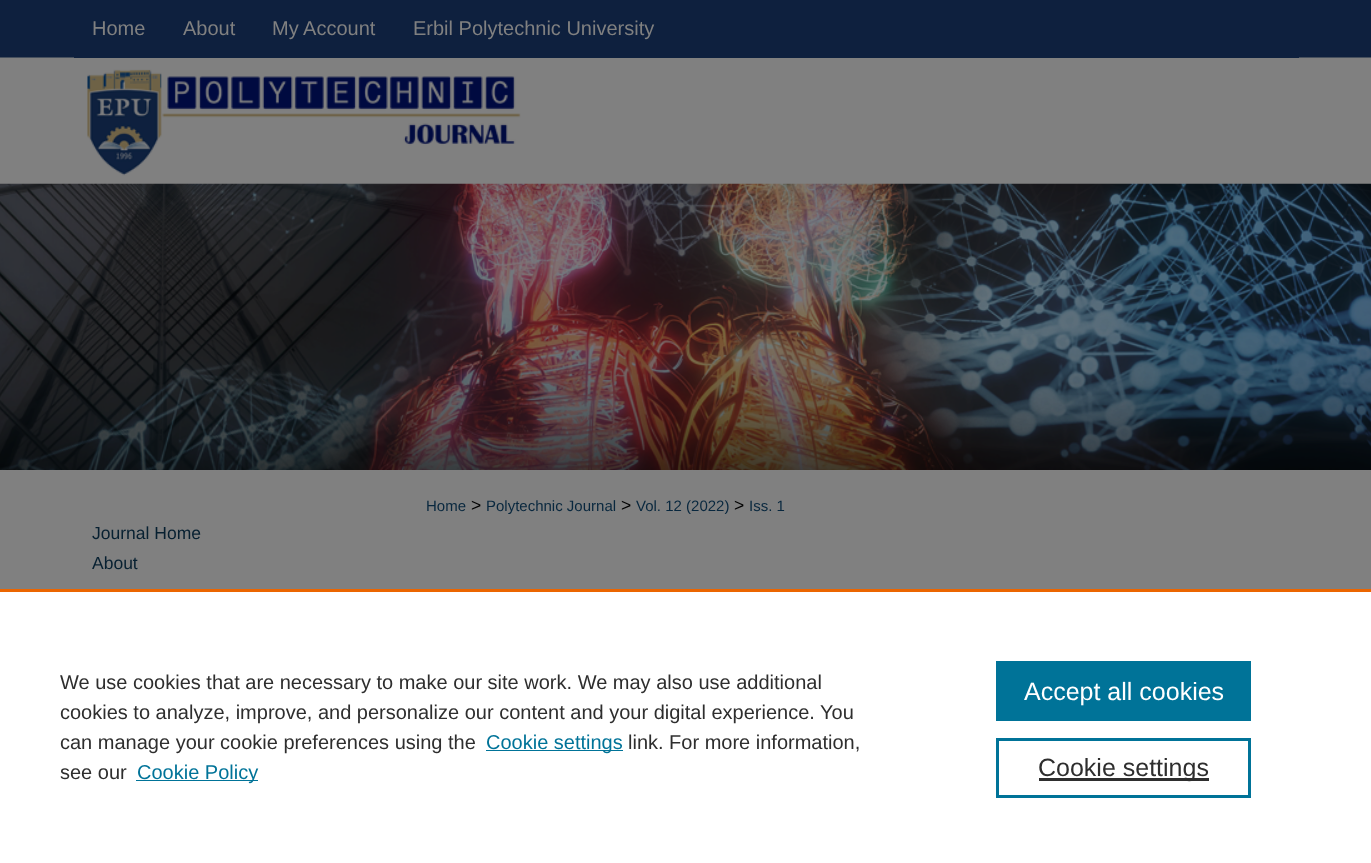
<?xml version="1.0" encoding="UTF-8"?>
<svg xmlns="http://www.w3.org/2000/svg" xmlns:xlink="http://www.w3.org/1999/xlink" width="1371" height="863">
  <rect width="100%" height="100%" fill="#808080" />
  <image x="0" y="0" width="1371" height="470" xlink:href="image1.png" />
  <rect x="74" y="57" width="1225" height="1" fill="#0e213e" />
  <image x="87" y="69" width="434" height="107" xlink:href="image2.png" />
  <rect y="592" width="1371" height="271" fill="#ffffff" />
  <rect y="589" width="1371" height="3" fill="#eb6500" />
  <rect x="486" y="750" width="137" height="1" fill="#007398" />
  <rect x="136" y="780" width="122" height="1" fill="#007398" />
  <rect x="996" y="661" width="255" height="60" fill="#007398" />
  <rect x="997.5" y="739.5" width="252" height="57" fill="none" stroke="#007398" stroke-width="3" />
  <rect x="1039" y="778" width="170" height="3" fill="#2e2e2e" />
  <text x="92" y="35" style="font-family: Liberation Sans; font-size: 20px; fill: #808080">Home</text>
  <text x="183" y="35" style="font-family: Liberation Sans; font-size: 20px; fill: #808080">About</text>
  <text x="272" y="35" style="font-family: Liberation Sans; font-size: 20px; fill: #808080">My Account</text>
  <text x="413" y="35" style="font-family: Liberation Sans; font-size: 20px; fill: #808080">Erbil Polytechnic University</text>
  <text x="426" y="511" style="font-family: Liberation Sans; font-size: 15px; fill: #08273e">Home</text>
  <text x="471" y="511" style="font-family: Liberation Sans; font-size: 17.5px; fill: #000000">&gt;</text>
  <text x="486" y="511" style="font-family: Liberation Sans; font-size: 15px; fill: #08273e">Polytechnic Journal</text>
  <text x="621" y="511" style="font-family: Liberation Sans; font-size: 17.5px; fill: #000000">&gt;</text>
  <text x="636" y="511" style="font-family: Liberation Sans; font-size: 15px; fill: #08273e">Vol. 12 (2022)</text>
  <text x="734" y="511" style="font-family: Liberation Sans; font-size: 17.5px; fill: #000000">&gt;</text>
  <text x="749" y="511" style="font-family: Liberation Sans; font-size: 15px; fill: #08273e">Iss. 1</text>
  <text x="92" y="539" style="font-family: Liberation Sans; font-size: 17.5px; fill: #072031">Journal Home</text>
  <text x="92" y="569" style="font-family: Liberation Sans; font-size: 17.5px; fill: #072031">About</text>
  <text x="60" y="689" style="font-family: Liberation Sans; font-size: 20px; fill: #2e2e2e">We use cookies that are necessary to make our site work. We may also use additional</text>
  <text x="60" y="719" style="font-family: Liberation Sans; font-size: 20px; fill: #2e2e2e">cookies to analyze, improve, and personalize our content and your digital experience. You</text>
  <text x="60" y="749" style="font-family: Liberation Sans; font-size: 20px; fill: #2e2e2e">can manage your cookie preferences using the</text>
  <text x="486" y="749" style="font-family: Liberation Sans; font-size: 20px; fill: #007398">Cookie settings</text>
  <text x="628" y="749" style="font-family: Liberation Sans; font-size: 20px; fill: #2e2e2e">link. For more information,</text>
  <text x="60" y="779" style="font-family: Liberation Sans; font-size: 20px; fill: #2e2e2e">see our</text>
  <text x="137" y="779" style="font-family: Liberation Sans; font-size: 20px; fill: #007398">Cookie Policy</text>
  <text x="1024" y="700" style="font-family: Liberation Sans; font-size: 25px; fill: #ffffff">Accept all cookies</text>
  <text x="1038" y="776" style="font-family: Liberation Sans; font-size: 25px; fill: #2e2e2e">Cookie settings</text>
</svg>
